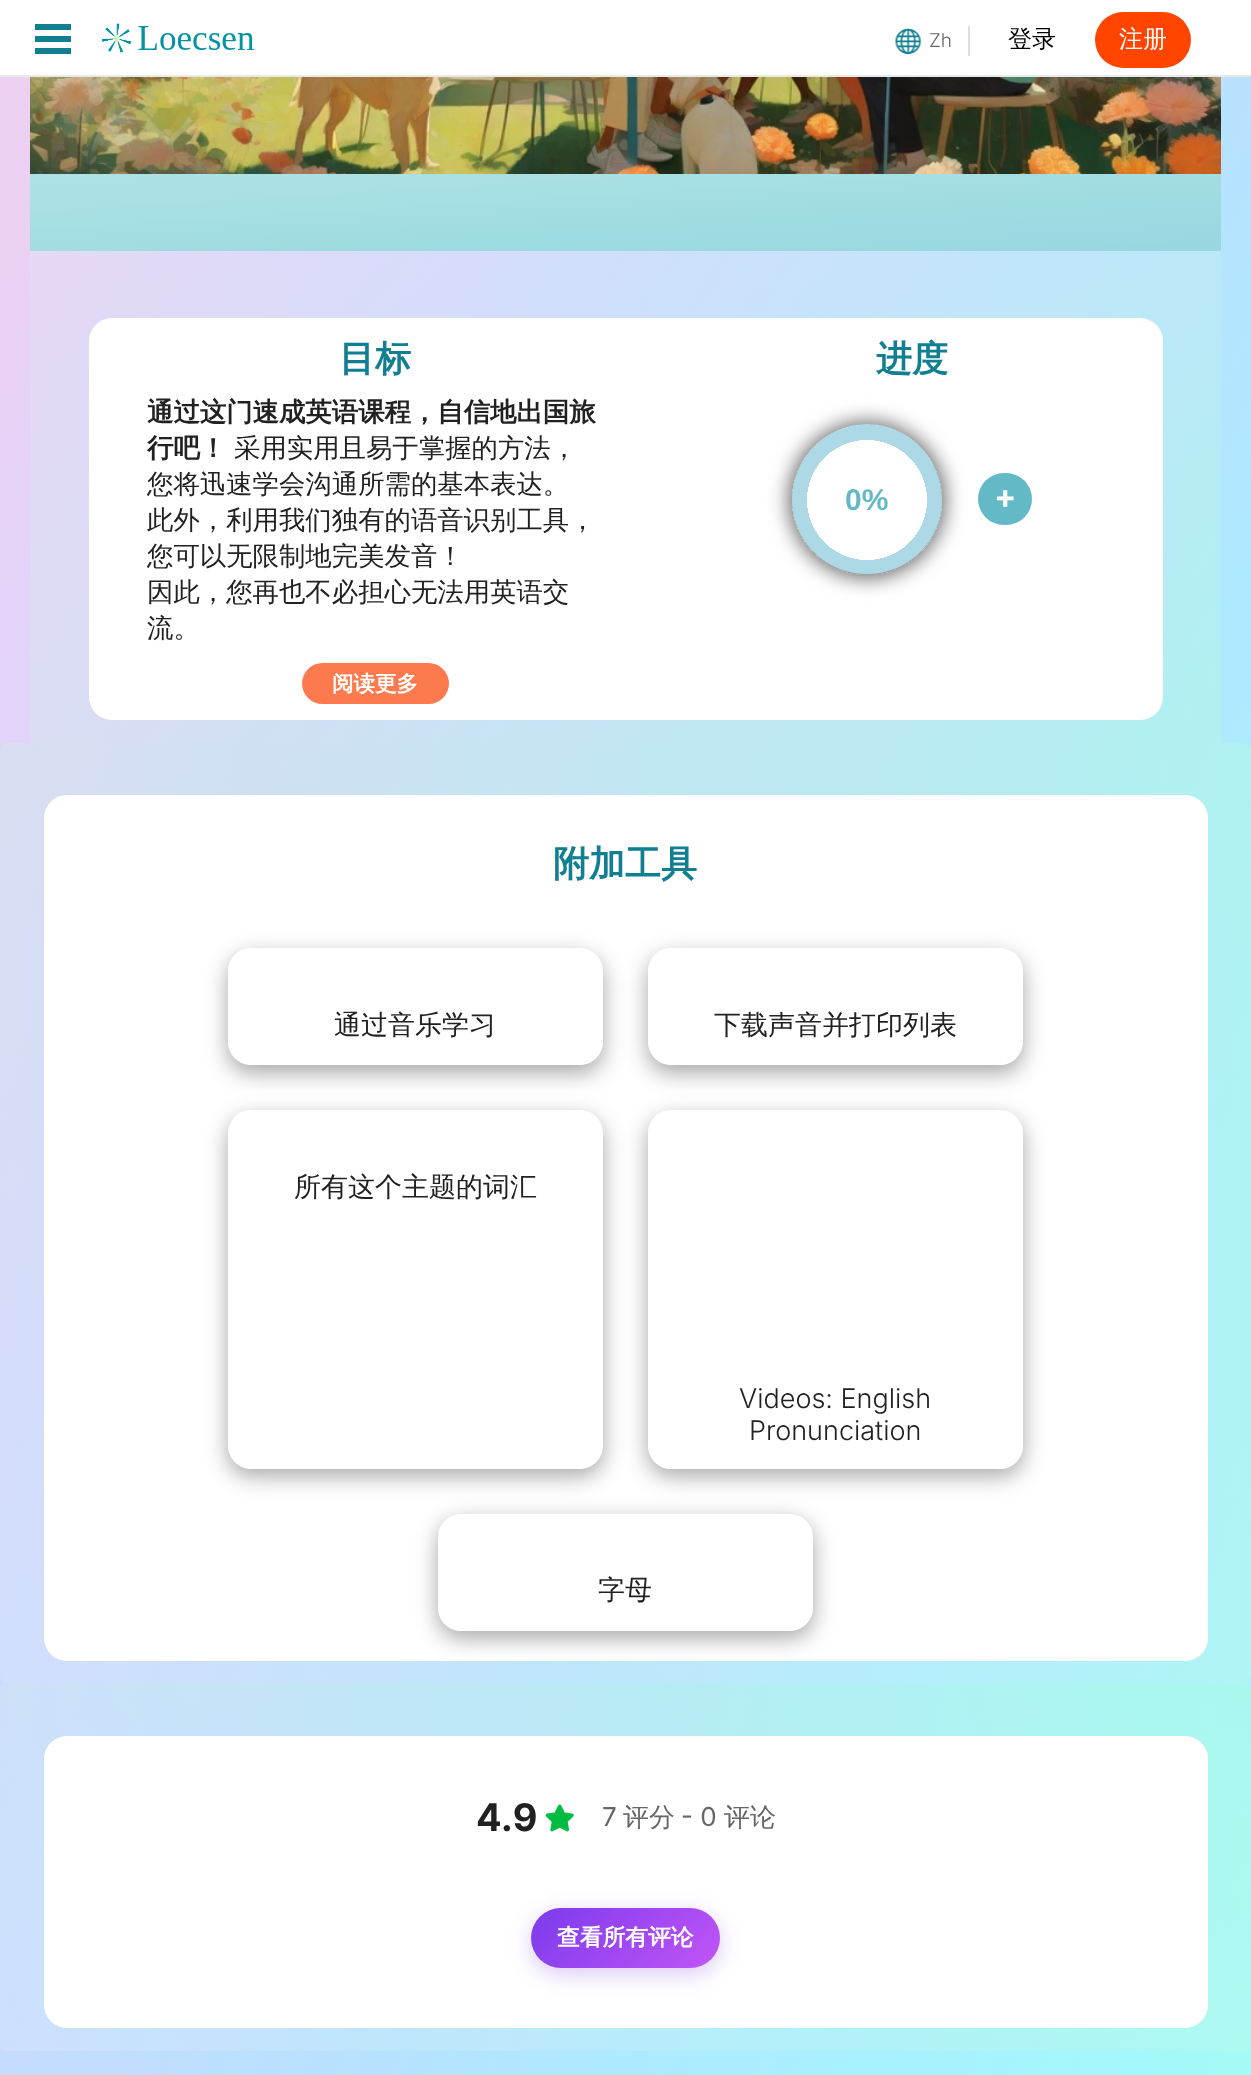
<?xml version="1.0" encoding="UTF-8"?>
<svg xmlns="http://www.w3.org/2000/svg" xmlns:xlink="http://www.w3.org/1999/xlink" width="1251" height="2075">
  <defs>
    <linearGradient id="g1" gradientUnits="userSpaceOnUse" x1="-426" y1="294" x2="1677" y2="1211"><stop offset="0" stop-color="#f9cee7" /><stop offset="0.09" stop-color="#f2cfee" /><stop offset="0.18" stop-color="#e9d1f5" /><stop offset="0.27" stop-color="#dfd4fa" /><stop offset="0.36" stop-color="#d4d6fd" /><stop offset="0.45" stop-color="#c9dbff" /><stop offset="0.55" stop-color="#bfdfff" /><stop offset="0.64" stop-color="#b6e3ff" /><stop offset="0.73" stop-color="#aeeaff" /><stop offset="0.82" stop-color="#a7f0ff" /><stop offset="0.91" stop-color="#a4f6fc" /><stop offset="1" stop-color="#a6fbf5" /></linearGradient>
    <linearGradient id="g2" gradientUnits="userSpaceOnUse" x1="621" y1="136" x2="630" y2="288"><stop offset="0" stop-color="#ade3e6" /><stop offset="0.25" stop-color="#a8e0e4" /><stop offset="0.5" stop-color="#a2dde3" /><stop offset="0.75" stop-color="#9dd9e1" /><stop offset="1" stop-color="#98d6e0" /></linearGradient>
    <linearGradient id="g3" gradientUnits="userSpaceOnUse" x1="795" y1="915" x2="456" y2="78"><stop offset="0" stop-color="#b5ffcf" stop-opacity="0.3" /><stop offset="1" stop-color="#ddebf9" stop-opacity="0.26" /></linearGradient>
    <radialGradient id="g4" gradientUnits="userSpaceOnUse" cx="867" cy="500" r="75"><stop offset="0.8" stop-color="#ffffff" /><stop offset="0.8" stop-color="#ffffff" stop-opacity="0" /><stop offset="1" stop-color="#ffffff" stop-opacity="0" /><stop offset="1" stop-color="#ffffff" /></radialGradient>
    <linearGradient id="g5" gradientUnits="userSpaceOnUse" x1="917" y1="587" x2="334" y2="1839"><stop offset="0" stop-color="#b5ffcf" stop-opacity="0.3" /><stop offset="1" stop-color="#ddebf9" stop-opacity="0.26" /></linearGradient>
    <clipPath id="clip1"><path d="M 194 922 h 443 v 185 h -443 z m 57 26 h 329 c 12.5 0 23 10.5 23 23 v 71 c 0 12.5 -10.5 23 -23 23 h -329 c -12.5 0 -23 -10.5 -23 -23 v -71 c 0 -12.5 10.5 -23 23 -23 z" clip-rule="evenodd" /></clipPath>
    <clipPath id="clip2"><path d="M 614 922 h 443 v 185 h -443 z m 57 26 h 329 c 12.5 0 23 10.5 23 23 v 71 c 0 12.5 -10.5 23 -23 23 h -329 c -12.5 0 -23 -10.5 -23 -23 v -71 c 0 -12.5 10.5 -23 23 -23 z" clip-rule="evenodd" /></clipPath>
    <clipPath id="clip3"><path d="M 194 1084 h 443 v 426 h -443 z m 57 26 h 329 c 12.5 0 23 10.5 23 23 v 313 c 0 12.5 -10.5 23 -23 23 h -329 c -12.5 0 -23 -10.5 -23 -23 v -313 c 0 -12.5 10.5 -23 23 -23 z" clip-rule="evenodd" /></clipPath>
    <clipPath id="clip4"><path d="M 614 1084 h 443 v 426 h -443 z m 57 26 h 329 c 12.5 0 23 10.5 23 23 v 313 c 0 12.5 -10.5 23 -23 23 h -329 c -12.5 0 -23 -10.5 -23 -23 v -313 c 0 -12.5 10.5 -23 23 -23 z" clip-rule="evenodd" /></clipPath>
    <clipPath id="clip5"><path d="M 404 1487 h 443 v 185 h -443 z m 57 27 h 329 c 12.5 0 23 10.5 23 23 v 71 c 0 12.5 -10.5 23 -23 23 h -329 c -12.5 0 -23 -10.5 -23 -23 v -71 c 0 -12.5 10.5 -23 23 -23 z" clip-rule="evenodd" /></clipPath>
    <linearGradient id="g6" gradientUnits="userSpaceOnUse" x1="808" y1="1476" x2="443" y2="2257"><stop offset="0" stop-color="#b5ffcf" stop-opacity="0.3" /><stop offset="1" stop-color="#ddebf9" stop-opacity="0.26" /></linearGradient>
    <linearGradient id="g7" gradientUnits="userSpaceOnUse" x1="563" y1="1876" x2="688" y2="2000"><stop offset="0" stop-color="#7c3bed" /><stop offset="1" stop-color="#c155f6" /></linearGradient>
  </defs>
  <rect width="100%" height="100%" fill="#ffffff" />
  <rect y="77" width="1251" height="1998" fill="url(#g1)" />
  <rect y="75" width="1251" height="2" fill="#e9e9e9" />
  <rect x="35" y="24" width="36" height="6" fill="#117f91" />
  <rect x="35" y="36" width="36" height="6" fill="#117f91" />
  <rect x="35" y="48" width="36" height="6" fill="#117f91" />
  <image x="102" y="23" width="153" height="30" xlink:href="image1.png" />
  <image x="895" y="28" width="27" height="26" xlink:href="image2.png" />
  <rect x="968" y="26" width="2" height="30" fill="#dddddd" />
  <rect x="1095" y="12" width="96" height="56" rx="28" fill="#ff4500" />
  <image x="30" y="77" width="1191" height="97" xlink:href="image3.png" />
  <rect x="30" y="174" width="1191" height="77" fill="url(#g2)" />
  <rect x="30" y="251" width="1191" height="492" fill="url(#g3)" />
  <rect x="89" y="318" width="1074" height="402" rx="23" fill="#ffffff" />
  <rect x="302" y="663" width="147" height="41" rx="20.5" fill="#fc7a4e" />
  <rect x="789" y="422" width="156" height="156" rx="78" fill="#666666" filter="blur(10px)" />
  <path d="M 867 500 v -76 c 41 0 75 34 75 76 c 0 41 -34 74 -75 74 c -41 0 -75 -33 -75 -74 c 0 -42 34 -76 75 -76 z" fill="#add8e6" />
  <circle cx="867" cy="500" r="75" fill="url(#g4)" />
  <rect x="978" y="473" width="54" height="52" rx="26" fill="#64b9c7" />
  <rect y="743" width="1251" height="940" rx="8" fill="url(#g5)" />
  <rect x="44" y="795" width="1164" height="866" rx="23" fill="#ffffff" />
  <g clip-path="url(#clip1)">
    <rect x="228" y="956" width="375" height="117" rx="23" fill="#000000" fill-opacity="0.35" filter="blur(11px)" />
  </g>
  <g clip-path="url(#clip2)">
    <rect x="648" y="956" width="375" height="117" rx="23" fill="#000000" fill-opacity="0.35" filter="blur(11px)" />
  </g>
  <g clip-path="url(#clip3)">
    <rect x="228" y="1118" width="375" height="358" rx="23" fill="#000000" fill-opacity="0.35" filter="blur(11px)" />
  </g>
  <g clip-path="url(#clip4)">
    <rect x="648" y="1118" width="375" height="358" rx="23" fill="#000000" fill-opacity="0.35" filter="blur(11px)" />
  </g>
  <g clip-path="url(#clip5)">
    <rect x="438" y="1521" width="375" height="117" rx="23" fill="#000000" fill-opacity="0.35" filter="blur(11px)" />
  </g>
  <rect y="1683" width="1251" height="368" rx="8" fill="url(#g6)" />
  <rect x="44" y="1736" width="1164" height="292" rx="23" fill="#ffffff" />
  <image x="545" y="1804" width="29" height="28" xlink:href="image4.png" />
  <rect x="531" y="1914" width="189" height="60" rx="30" fill="#6d28d9" fill-opacity="0.25" filter="blur(11px)" />
  <rect x="531" y="1908" width="189" height="60" rx="30" fill="url(#g7)" />
  <text x="929" y="47" style="font-family: Inter; font-size: 19px; font-weight: 300; fill: #666666">Zh</text>
  <text x="1008" y="47" style="font-family: WenQuanYi Zen Hei; font-size: 24px; font-weight: 500; fill: #000000">登录</text>
  <text x="1119" y="47" style="font-family: WenQuanYi Zen Hei; font-size: 24px; font-weight: 500; fill: #ffffff">注册</text>
  <text x="339" y="371" style="font-family: WenQuanYi Zen Hei; font-size: 36px; font-weight: bold; fill: #117f91">目标</text>
  <text x="147" y="421" style="font-family: WenQuanYi Zen Hei; font-size: 26.4px; font-weight: bold; fill: #212121">通过这门速成英语课程，自信地出国旅</text>
  <text x="147" y="457" style="font-family: WenQuanYi Zen Hei; font-size: 26.4px; font-weight: bold; fill: #212121">行吧！</text>
  <text x="234" y="457" style="font-family: WenQuanYi Zen Hei; font-size: 26.4px; font-weight: 500; fill: #212121">采用实用且易于掌握的方法，</text>
  <text x="147" y="493" style="font-family: WenQuanYi Zen Hei; font-size: 26.4px; font-weight: 500; fill: #212121">您将迅速学会沟通所需的基本表达。</text>
  <text x="147" y="529" style="font-family: WenQuanYi Zen Hei; font-size: 26.4px; font-weight: 500; fill: #212121">此外，利用我们独有的语音识别工具，</text>
  <text x="147" y="565" style="font-family: WenQuanYi Zen Hei; font-size: 26.4px; font-weight: 500; fill: #212121">您可以无限制地完美发音！</text>
  <text x="147" y="601" style="font-family: WenQuanYi Zen Hei; font-size: 26.4px; font-weight: 500; fill: #212121">因此，您再也不必担心无法用英语交</text>
  <text x="147" y="637" style="font-family: WenQuanYi Zen Hei; font-size: 26.4px; font-weight: 500; fill: #212121">流。</text>
  <text x="332" y="691" style="font-family: WenQuanYi Zen Hei; font-size: 21.5px; font-weight: bold; fill: #ffffff">阅读更多</text>
  <text x="876" y="371" style="font-family: WenQuanYi Zen Hei; font-size: 36px; font-weight: bold; fill: #117f91">进度</text>
  <text x="845" y="510" style="font-family: Liberation Sans; font-size: 30px; font-weight: bold; fill: #64b9c7">0%</text>
  <text x="994" y="508" style="font-family: Inter; font-size: 33px; font-weight: bold; fill: #ffffff">+</text>
  <text x="553" y="876" style="font-family: WenQuanYi Zen Hei; font-size: 36px; font-weight: bold; fill: #117f91">附加工具</text>
  <text x="334" y="1034" style="font-family: WenQuanYi Zen Hei; font-size: 27px; font-weight: 500; fill: #212121">通过音乐学习</text>
  <text x="714" y="1034" style="font-family: WenQuanYi Zen Hei; font-size: 27px; font-weight: 500; fill: #212121">下载声音并打印列表</text>
  <text x="294" y="1196" style="font-family: WenQuanYi Zen Hei; font-size: 27px; font-weight: 500; fill: #212121">所有这个主题的词汇</text>
  <text x="739" y="1408" style="font-family: Inter; font-size: 27px; font-weight: 300; fill: #212121">Videos: English</text>
  <text x="749" y="1440" style="font-family: Inter; font-size: 27px; font-weight: 300; fill: #212121">Pronunciation</text>
  <text x="598" y="1599" style="font-family: WenQuanYi Zen Hei; font-size: 27px; font-weight: 500; fill: #212121">字母</text>
  <text x="476" y="1831" style="font-family: Inter; font-size: 38px; font-weight: bold; fill: #212121">4.9</text>
  <text x="602" y="1826" style="font-family: Inter; font-size: 26px; fill: #666666">7</text>
  <text x="623" y="1826" style="font-family: WenQuanYi Zen Hei; font-size: 26px; font-weight: 500; fill: #666666">评分</text>
  <text x="681" y="1826" style="font-family: Inter; font-size: 26px; fill: #666666">- 0</text>
  <text x="724" y="1826" style="font-family: WenQuanYi Zen Hei; font-size: 26px; font-weight: 500; fill: #666666">评论</text>
  <text x="557" y="1945" style="font-family: WenQuanYi Zen Hei; font-size: 22.75px; font-weight: bold; fill: #ffffff">查看所有评论</text>
</svg>
